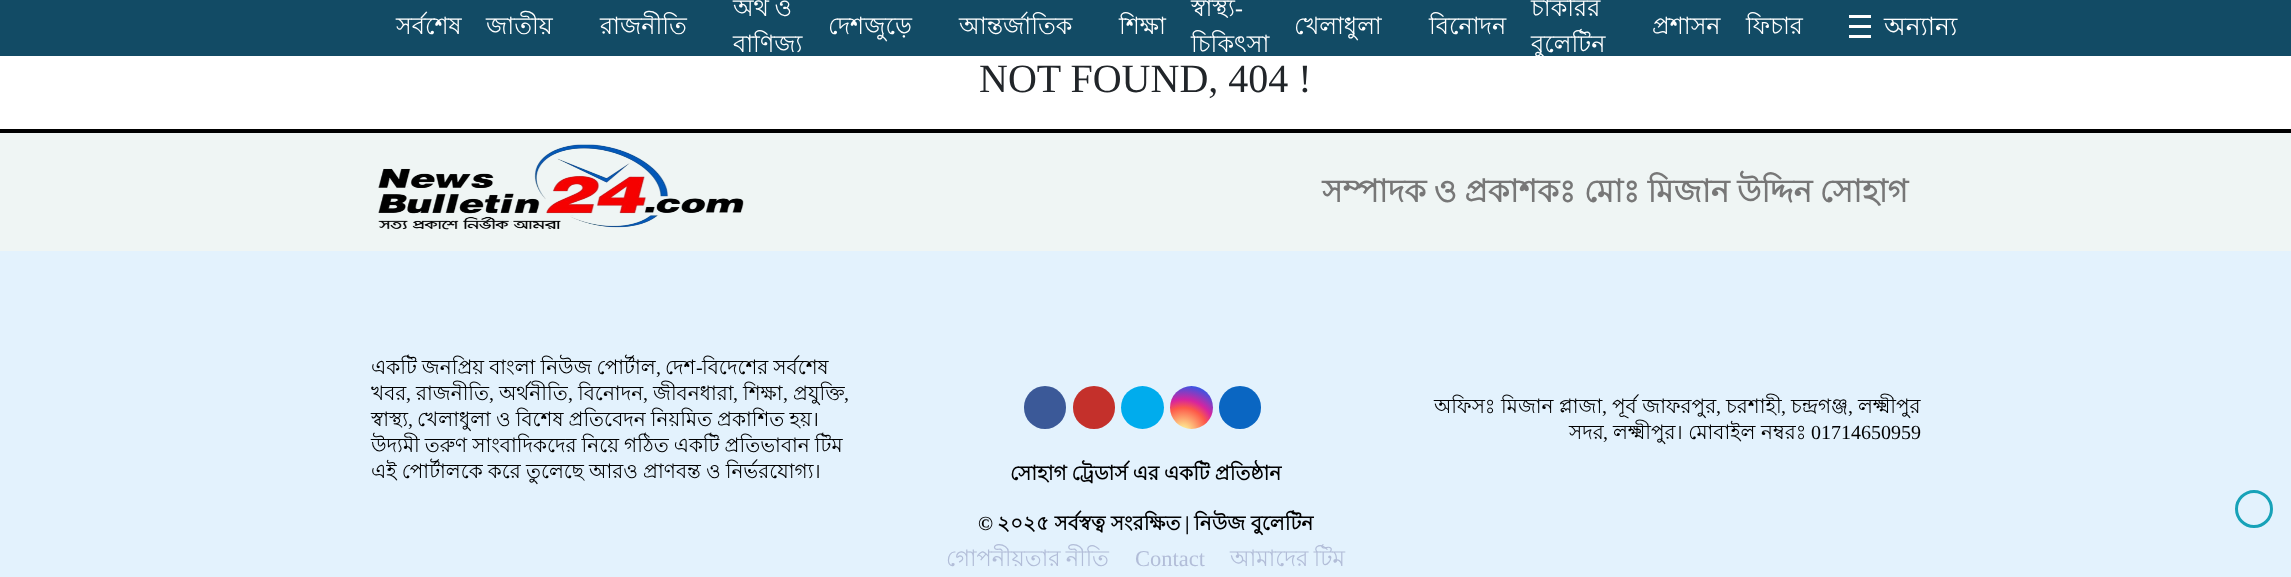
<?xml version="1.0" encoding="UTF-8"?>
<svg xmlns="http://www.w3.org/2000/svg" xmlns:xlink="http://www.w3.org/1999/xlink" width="2291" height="577">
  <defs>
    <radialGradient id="g1" gradientUnits="userSpaceOnUse" cx="1183" cy="432" r="54"><stop offset="0" stop-color="#fdf497" /><stop offset="0.05" stop-color="#fdf497" /><stop offset="0.45" stop-color="#fd5949" /><stop offset="0.6" stop-color="#d6249f" /><stop offset="0.9" stop-color="#285aeb" /></radialGradient>
  </defs>
  <rect width="100%" height="100%" fill="#ffffff" />
  <rect width="2291" height="56" fill="#124b65" />
  <rect x="1849" y="15" width="22" height="3" fill="#ffffff" />
  <rect x="1849" y="25" width="22" height="3" fill="#ffffff" />
  <rect x="1849" y="35" width="22" height="3" fill="#ffffff" />
  <rect y="251" width="2291" height="326" fill="#e3f2fd" />
  <circle cx="2254" cy="509" r="17.5" fill="none" stroke="#17a2b8" stroke-width="3" />
  <rect y="133" width="2291" height="118" fill="#eff5f4" />
  <rect y="129" width="2291" height="4" fill="#000000" />
  <image x="378" y="144" width="366" height="86" xlink:href="image1.png" />
  <rect x="1024" y="386" width="42" height="43" rx="21" fill="#3b5998" />
  <rect x="1073" y="386" width="42" height="43" rx="21" fill="#c4302b" />
  <circle cx="1142.5" cy="407.5" r="21.5" fill="#00aced" />
  <circle cx="1191.5" cy="407.5" r="21.5" fill="url(#g1)" />
  <rect x="1219" y="386" width="42" height="43" rx="21" fill="#0a66c2" />
  <text x="396" y="34" style="font-family: Lohit Bengali; font-size: 23.75px; fill: #ffffff">সর্বশেষ</text>
  <text x="486" y="34" style="font-family: Lohit Bengali; font-size: 23.75px; fill: #ffffff">জাতীয়</text>
  <text x="600" y="34" style="font-family: Lohit Bengali; font-size: 23.75px; fill: #ffffff">রাজনীতি</text>
  <text x="733" y="16" word-spacing="-1" style="font-family: Lohit Bengali; font-size: 23.75px; fill: #ffffff">অর্থ ও</text>
  <text x="733" y="52" style="font-family: Lohit Bengali; font-size: 23.75px; fill: #ffffff">বাণিজ্য</text>
  <text x="828" y="34" style="font-family: Lohit Bengali; font-size: 23.75px; fill: #ffffff">দেশজুড়ে</text>
  <text x="959" y="34" style="font-family: Lohit Bengali; font-size: 23.75px; fill: #ffffff">আন্তর্জাতিক</text>
  <text x="1119" y="34" style="font-family: Lohit Bengali; font-size: 23.75px; fill: #ffffff">শিক্ষা</text>
  <text x="1191" y="16" style="font-family: Lohit Bengali; font-size: 23.75px; fill: #ffffff">স্বাস্থ্য</text>
  <text x="1235" y="16" style="font-family: Liberation Serif; font-size: 23.75px; fill: #ffffff">-</text>
  <text x="1191" y="52" style="font-family: Lohit Bengali; font-size: 23.75px; fill: #ffffff">চিকিৎসা</text>
  <text x="1294" y="34" style="font-family: Lohit Bengali; font-size: 23.75px; fill: #ffffff">খেলাধুলা</text>
  <text x="1429" y="34" style="font-family: Lohit Bengali; font-size: 23.75px; fill: #ffffff">বিনোদন</text>
  <text x="1531" y="16" style="font-family: Lohit Bengali; font-size: 23.75px; fill: #ffffff">চাকরির</text>
  <text x="1531" y="52" style="font-family: Lohit Bengali; font-size: 23.75px; fill: #ffffff">বুলেটিন</text>
  <text x="1652" y="34" style="font-family: Lohit Bengali; font-size: 23.75px; fill: #ffffff">প্রশাসন</text>
  <text x="1746" y="34" style="font-family: Lohit Bengali; font-size: 23.75px; fill: #ffffff">ফিচার</text>
  <text x="1884" y="35" style="font-family: Lohit Bengali; font-size: 25px; fill: #ffffff">অন্যান্য</text>
  <text x="979" y="92" style="font-family: Liberation Serif; font-size: 40px; fill: #212529">NOT FOUND, 404 !</text>
  <text x="1322" y="202" word-spacing="-1" style="font-family: Lohit Bengali; font-size: 31.25px; font-weight: bold; fill: #777777">সম্পাদক ও প্রকাশকঃ</text>
  <text x="1584" y="202" word-spacing="-1" style="font-family: Lohit Bengali; font-size: 31.25px; font-weight: bold; fill: #777777">মোঃ মিজান উদ্দিন সোহাগ</text>
  <text x="371" y="374" word-spacing="-0.5" style="font-family: Lohit Bengali; font-size: 20px; fill: #000000">একটি জনপ্রিয় বাংলা নিউজ পোর্টাল</text>
  <text x="665" y="374" style="font-family: Lohit Bengali; font-size: 20px; fill: #000000">দেশ</text>
  <text x="696" y="374" style="font-family: Liberation Serif; font-size: 20px; fill: #000000">-</text>
  <text x="702" y="374" word-spacing="-0.5" style="font-family: Lohit Bengali; font-size: 20px; fill: #000000">বিদেশের সর্বশেষ</text>
  <text x="656" y="374" style="font-family: Liberation Serif; font-size: 20px; fill: #000000">,</text>
  <text x="371" y="400" style="font-family: Lohit Bengali; font-size: 20px; fill: #000000">খবর</text>
  <text x="406" y="400" style="font-family: Liberation Serif; font-size: 20px; fill: #000000">,</text>
  <text x="416" y="400" style="font-family: Lohit Bengali; font-size: 20px; fill: #000000">রাজনীতি</text>
  <text x="489" y="400" style="font-family: Liberation Serif; font-size: 20px; fill: #000000">,</text>
  <text x="499" y="400" style="font-family: Lohit Bengali; font-size: 20px; fill: #000000">অর্থনীতি</text>
  <text x="568" y="400" style="font-family: Liberation Serif; font-size: 20px; fill: #000000">,</text>
  <text x="578" y="400" style="font-family: Lohit Bengali; font-size: 20px; fill: #000000">বিনোদন</text>
  <text x="743" y="400" style="font-family: Lohit Bengali; font-size: 20px; fill: #000000">শিক্ষা</text>
  <text x="793" y="400" style="font-family: Lohit Bengali; font-size: 20px; fill: #000000">প্রযুক্তি</text>
  <text x="643" y="400" style="font-family: Liberation Serif; font-size: 20px; fill: #000000">,</text>
  <text x="653" y="400" style="font-family: Lohit Bengali; font-size: 20px; fill: #000000">জীবনধারা</text>
  <text x="733" y="400" style="font-family: Liberation Serif; font-size: 20px; fill: #000000">,</text>
  <text x="783" y="400" style="font-family: Liberation Serif; font-size: 20px; fill: #000000">,</text>
  <text x="844" y="400" style="font-family: Liberation Serif; font-size: 20px; fill: #000000">,</text>
  <text x="371" y="426" style="font-family: Lohit Bengali; font-size: 20px; fill: #000000">স্বাস্থ্য</text>
  <text x="408" y="426" style="font-family: Liberation Serif; font-size: 20px; fill: #000000">,</text>
  <text x="417" y="426" word-spacing="-0.5" style="font-family: Lohit Bengali; font-size: 20px; fill: #000000">খেলাধুলা ও বিশেষ প্রতিবেদন নিয়মিত প্রকাশিত হয়।</text>
  <text x="371" y="452" word-spacing="-0.5" style="font-family: Lohit Bengali; font-size: 20px; fill: #000000">উদ্যমী তরুণ সাংবাদিকদের নিয়ে গঠিত একটি প্রতিভাবান টিম</text>
  <text x="371" y="478" word-spacing="-0.5" style="font-family: Lohit Bengali; font-size: 20px; fill: #000000">এই পোর্টালকে করে তুলেছে আরও প্রাণবন্ত ও নির্ভরযোগ্য।</text>
  <text x="1434" y="413" style="font-family: Lohit Bengali; font-size: 20px; fill: #000000">অফিসঃ মিজান প্লাজা</text>
  <text x="1602" y="413" style="font-family: Liberation Serif; font-size: 20px; fill: #000000">,</text>
  <text x="1612" y="413" style="font-family: Lohit Bengali; font-size: 20px; fill: #000000">পূর্ব জাফরপুর</text>
  <text x="1716" y="413" style="font-family: Liberation Serif; font-size: 20px; fill: #000000">,</text>
  <text x="1726" y="413" style="font-family: Lohit Bengali; font-size: 20px; fill: #000000">চরশাহী</text>
  <text x="1781" y="413" style="font-family: Liberation Serif; font-size: 20px; fill: #000000">,</text>
  <text x="1791" y="413" style="font-family: Lohit Bengali; font-size: 20px; fill: #000000">চন্দ্রগঞ্জ</text>
  <text x="1848" y="413" style="font-family: Liberation Serif; font-size: 20px; fill: #000000">,</text>
  <text x="1858" y="413" style="font-family: Lohit Bengali; font-size: 20px; fill: #000000">লক্ষ্মীপুর</text>
  <text x="1569" y="439" style="font-family: Lohit Bengali; font-size: 20px; fill: #000000">সদর</text>
  <text x="1603" y="439" style="font-family: Liberation Serif; font-size: 20px; fill: #000000">,</text>
  <text x="1613" y="439" style="font-family: Lohit Bengali; font-size: 20px; fill: #000000">লক্ষ্মীপুর। মোবাইল নম্বরঃ</text>
  <text x="1811" y="439" style="font-family: Liberation Serif; font-size: 20px; fill: #000000">01714650959</text>
  <text x="1010" y="480" word-spacing="-0.5" style="font-family: Lohit Bengali; font-size: 20px; font-weight: bold; fill: #000000">সোহাগ ট্রেডার্স এর একটি প্রতিষ্ঠান</text>
  <text x="978" y="530" style="font-family: Liberation Serif; font-size: 20px; font-weight: bold; fill: #000000">©</text>
  <text x="997" y="530" style="font-family: Lohit Bengali; font-size: 20px; font-weight: bold; fill: #000000">২০২৫ সর্বস্বত্ব সংরক্ষিত</text>
  <text x="1185" y="530" style="font-family: Liberation Serif; font-size: 20px; font-weight: bold; fill: #000000">|</text>
  <text x="1194" y="530" style="font-family: Lohit Bengali; font-size: 20px; font-weight: bold; fill: #000000">নিউজ বুলেটিন</text>
  <text x="946" y="566" word-spacing="-1" style="font-family: Lohit Bengali; font-size: 22.5px; fill: #b2bdd8">গোপনীয়তার নীতি</text>
  <text x="1135" y="566" style="font-family: Liberation Serif; font-size: 22.5px; fill: #b2bdd8">Contact</text>
  <text x="1230" y="566" word-spacing="-1" style="font-family: Lohit Bengali; font-size: 22.5px; fill: #b2bdd8">আমাদের টিম</text>
</svg>
